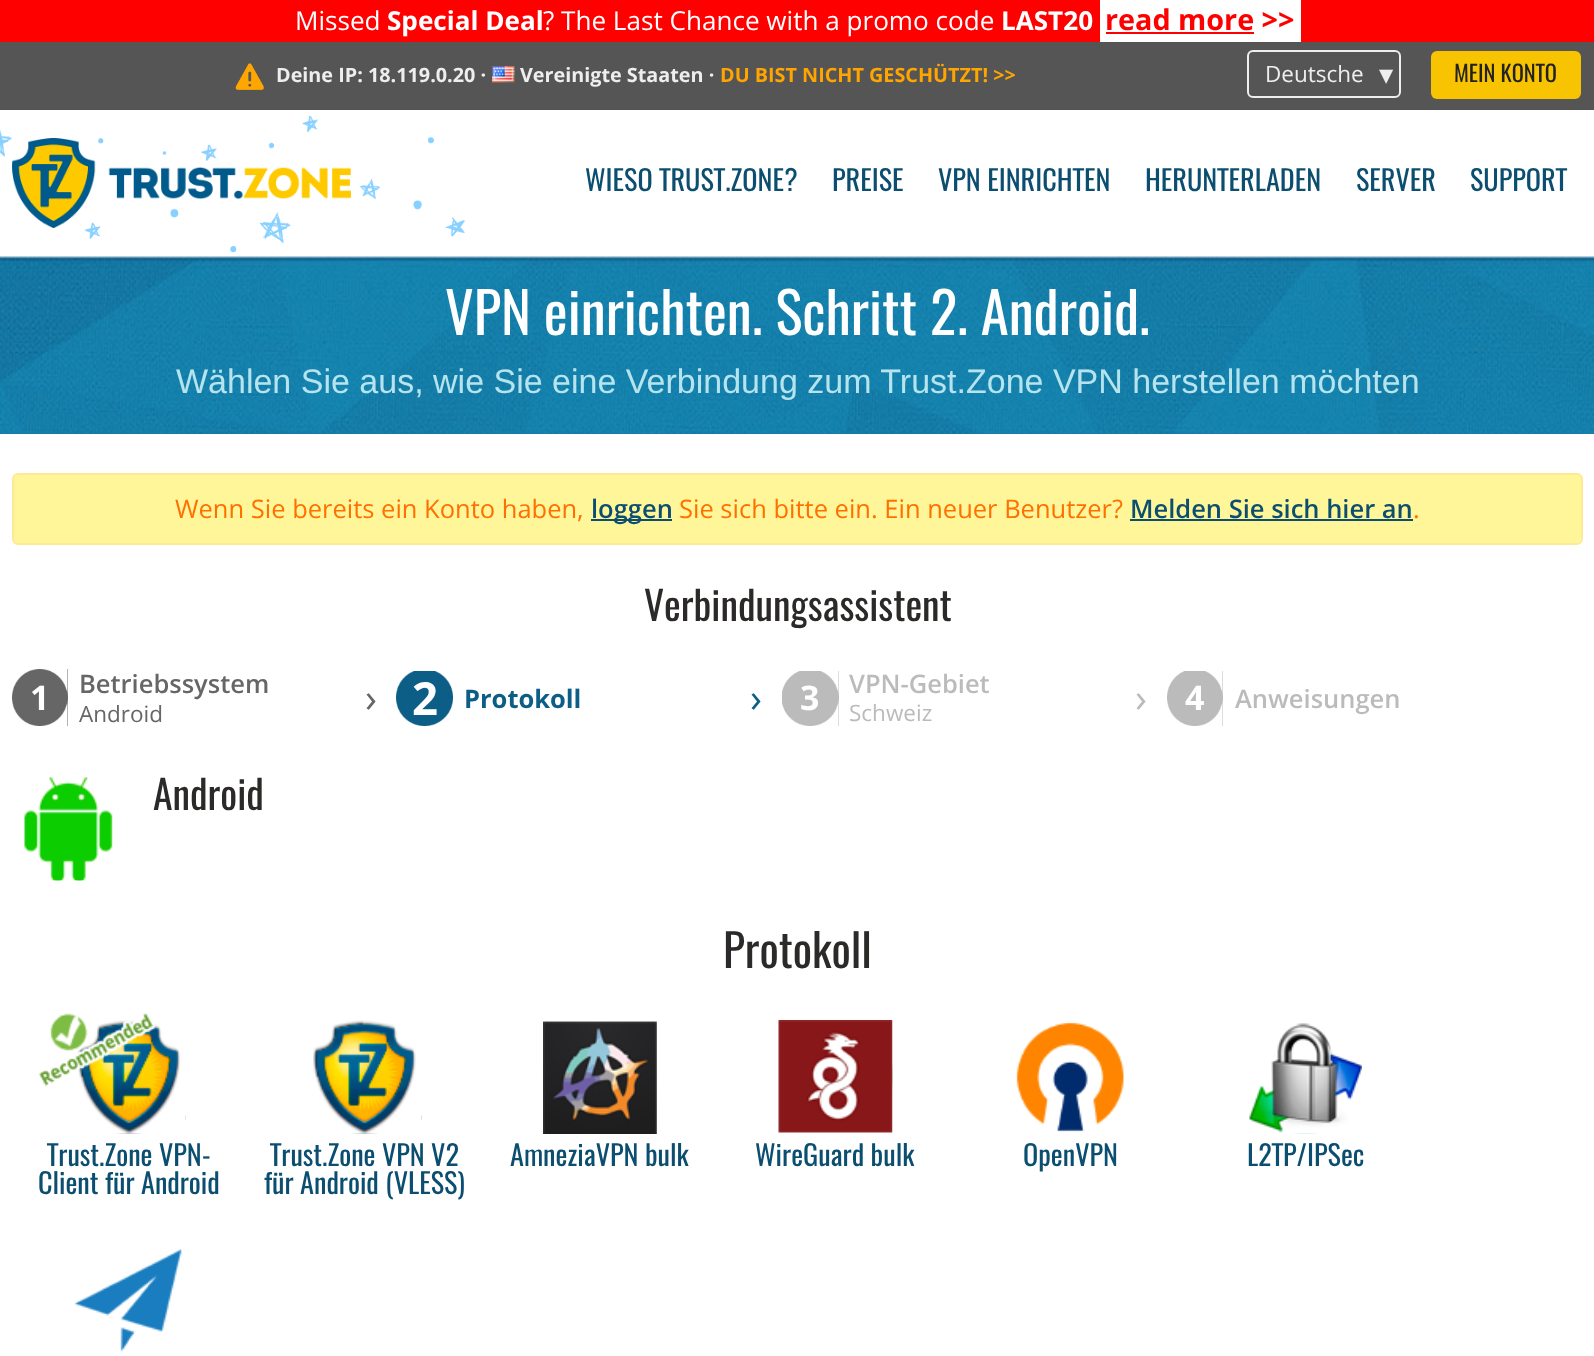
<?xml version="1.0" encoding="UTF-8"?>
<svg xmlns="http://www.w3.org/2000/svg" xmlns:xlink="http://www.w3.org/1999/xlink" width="1594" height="1356">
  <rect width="100%" height="100%" fill="#ffffff" />
  <rect width="1594" height="42" fill="#ff0000" />
  <rect x="1100" width="201" height="42" fill="#ffffff" />
  <rect x="1106" y="32" width="148" height="2" fill="#ff0000" />
  <rect y="42" width="1594" height="68" fill="#555555" />
  <image x="235" y="63" width="29" height="27" xlink:href="image1.png" />
  <image x="492" y="66" width="23" height="17" xlink:href="image2.png" />
  <rect x="1248" y="51" width="152" height="46" rx="5" fill="none" stroke="#eeeeee" stroke-width="2" />
  <rect x="1431" y="51" width="150" height="48" rx="6" fill="#f8c300" />
  <image x="0" y="116" width="466" height="137" xlink:href="image3.png" />
  <image x="12" y="138" width="339" height="90" xlink:href="image4.png" />
  <rect y="433" width="1594" height="1" fill="#147aa6" />
  <image x="0" y="256" width="1594" height="178" xlink:href="image5.png" />
  <rect x="13" y="474" width="1569" height="70" rx="5" fill="#fff699" stroke="#ffe997" stroke-width="2" />
  <rect x="591" y="519" width="81" height="2" fill="#0b4e70" />
  <rect x="1130" y="519" width="283" height="2" fill="#0b4e70" />
  <rect x="12" y="669" width="56" height="57" fill="#666666" />
  <image x="12" y="669" width="56" height="57" xlink:href="image6.png" />
  <rect x="396" y="671" width="57" height="55" fill="#0c5e87" />
  <image x="396" y="671" width="57" height="55" xlink:href="image7.png" />
  <rect x="782" y="671" width="57" height="55" fill="#bbbbbb" />
  <image x="782" y="671" width="57" height="55" xlink:href="image8.png" />
  <rect x="1167" y="671" width="56" height="55" fill="#bbbbbb" />
  <image x="1167" y="671" width="56" height="55" xlink:href="image9.png" />
  <image x="24" y="777" width="89" height="104" xlink:href="image10.png" />
  <image x="77" y="1020" width="109" height="114" xlink:href="image12.png" />
  <image x="38" y="1013" width="118" height="74" xlink:href="image11.png" />
  <image x="313" y="1020" width="109" height="114" xlink:href="image13.png" />
  <image x="543" y="1021" width="114" height="113" xlink:href="image14.png" />
  <image x="778" y="1020" width="115" height="113" xlink:href="image15.png" />
  <image x="1016" y="1022" width="108" height="110" xlink:href="image16.png" />
  <image x="1249" y="1023" width="113" height="111" xlink:href="image17.png" />
  <image x="74" y="1249" width="108" height="103" xlink:href="image18.png" />
  <text x="295" y="30" style="font-family: Open Sans; font-size: 26.1px; fill: #ffffff">Missed</text>
  <text x="387" y="30" style="font-family: Open Sans; font-size: 26.1px; font-weight: bold; fill: #ffffff">Special Deal</text>
  <text x="543" y="30" style="font-family: Open Sans; font-size: 26.1px; fill: #ffffff">? The Last Chance with a promo code</text>
  <text x="1001" y="30" style="font-family: Open Sans; font-size: 26.1px; font-weight: bold; fill: #ffffff">LAST20</text>
  <text x="1105" y="30" style="font-family: Open Sans; font-size: 28.75px; font-weight: bold; fill: #ff0000">read more &gt;&gt;</text>
  <text x="276" y="82" style="font-family: Open Sans; font-size: 19.8px; font-weight: bold; fill: #eeeeee">Deine IP: 18.119.0.20 ·</text>
  <text x="520" y="82" style="font-family: Open Sans; font-size: 19.8px; font-weight: bold; fill: #eeeeee">Vereinigte Staaten ·</text>
  <text x="720" y="82" style="font-family: Open Sans; font-size: 19.8px; font-weight: bold; fill: #ffa500">DU BIST NICHT GESCHÜTZT! &gt;&gt;</text>
  <text x="1265" y="82" style="font-family: Open Sans; font-size: 22.5px; fill: #eeeeee">Deutsche</text>
  <text x="1379" y="84" style="font-family: DejaVu Sans; font-size: 28.25px; fill: #eeeeee">▾</text>
  <text x="1454" y="82" style="font-family: Oswald; font-size: 22.5px; fill: #222222">MEIN KONTO</text>
  <text x="585" y="191" style="font-family: Oswald; font-size: 28.25px; fill: #0b4e70">WIESO TRUST.ZONE?</text>
  <text x="832" y="191" style="font-family: Oswald; font-size: 28.25px; fill: #0b4e70">PREISE</text>
  <text x="938" y="191" style="font-family: Oswald; font-size: 28.25px; fill: #0b4e70">VPN EINRICHTEN</text>
  <text x="1145" y="191" style="font-family: Oswald; font-size: 28.25px; fill: #0b4e70">HERUNTERLADEN</text>
  <text x="1356" y="191" style="font-family: Oswald; font-size: 28.25px; fill: #0b4e70">SERVER</text>
  <text x="1470" y="191" style="font-family: Oswald; font-size: 28.25px; fill: #0b4e70">SUPPORT</text>
  <text x="445" y="335" style="font-family: Oswald; font-size: 56.75px; fill: #ffffff">VPN einrichten. Schritt 2. Android.</text>
  <text x="176" y="393" style="font-family: Liberation Sans; font-size: 34px; fill: #b6e4ee">Wählen Sie aus, wie Sie eine Verbindung zum Trust.Zone VPN herstellen möchten</text>
  <text x="175" y="518" style="font-family: Open Sans; font-size: 25.5px; fill: #ff7000">Wenn Sie bereits ein Konto haben,</text>
  <text x="591" y="518" style="font-family: Open Sans; font-size: 25.5px; font-weight: 600; fill: #0b4e70">loggen</text>
  <text x="679" y="518" style="font-family: Open Sans; font-size: 25.5px; fill: #ff7000">Sie sich bitte ein. Ein neuer Benutzer?</text>
  <text x="1130" y="518" style="font-family: Open Sans; font-size: 25.5px; font-weight: 600; fill: #0b4e70">Melden Sie sich hier an</text>
  <text x="1413" y="518" style="font-family: Open Sans; font-size: 25.5px; fill: #ff7000">.</text>
  <text x="644" y="621" style="font-family: Oswald; font-size: 39.75px; fill: #2b2a29">Verbindungsassistent</text>
  <text x="30" y="710" style="font-family: Open Sans; font-size: 34px; font-weight: bold; fill: #ffffff">1</text>
  <text x="79" y="693" style="font-family: Open Sans; font-size: 25.5px; font-weight: 600; fill: #666666">Betriebssystem</text>
  <text x="79" y="722" style="font-family: Open Sans; font-size: 22.5px; fill: #666666">Android</text>
  <text x="365" y="712" style="font-family: Open Sans; font-size: 39.75px; fill: #666666">›</text>
  <text x="412" y="715" style="font-family: Open Sans; font-size: 45.5px; font-weight: bold; fill: #ffffff">2</text>
  <text x="464" y="708" style="font-family: Open Sans; font-size: 25.5px; font-weight: bold; fill: #0c5e87">Protokoll</text>
  <text x="750" y="712" style="font-family: Open Sans; font-size: 39.75px; fill: #0c5e87">›</text>
  <text x="800" y="710" style="font-family: Open Sans; font-size: 34px; font-weight: bold; fill: #ffffff">3</text>
  <text x="849" y="693" style="font-family: Open Sans; font-size: 25.5px; font-weight: 600; fill: #bbbbbb">VPN-Gebiet</text>
  <text x="849" y="721" style="font-family: Open Sans; font-size: 22.5px; fill: #bbbbbb">Schweiz</text>
  <text x="1135" y="712" style="font-family: Open Sans; font-size: 39.75px; fill: #bbbbbb">›</text>
  <text x="1185" y="710" style="font-family: Open Sans; font-size: 34px; font-weight: bold; fill: #ffffff">4</text>
  <text x="1235" y="708" style="font-family: Open Sans; font-size: 25.5px; font-weight: 600; fill: #bbbbbb">Anweisungen</text>
  <text x="153" y="810" style="font-family: Oswald; font-size: 39.75px; fill: #2b2a29">Android</text>
  <text x="723" y="968" style="font-family: Oswald; font-size: 45.5px; fill: #2b2a29">Protokoll</text>
  <text x="47" y="1166" style="font-family: Oswald; font-size: 28.25px; fill: #0b4e70">Trust.Zone VPN-</text>
  <text x="38" y="1194" style="font-family: Oswald; font-size: 28.25px; fill: #0b4e70">Client für Android</text>
  <text x="270" y="1166" style="font-family: Oswald; font-size: 28.25px; fill: #0b4e70">Trust.Zone VPN V2</text>
  <text x="264" y="1194" style="font-family: Oswald; font-size: 28.25px; fill: #0b4e70">für Android (VLESS)</text>
  <text x="510" y="1166" style="font-family: Oswald; font-size: 28.25px; fill: #0b4e70">AmneziaVPN bulk</text>
  <text x="755" y="1166" style="font-family: Oswald; font-size: 28.25px; fill: #0b4e70">WireGuard bulk</text>
  <text x="1023" y="1166" style="font-family: Oswald; font-size: 28.25px; fill: #0b4e70">OpenVPN</text>
  <text x="1247" y="1166" style="font-family: Oswald; font-size: 28.25px; fill: #0b4e70">L2TP/IPSec</text>
</svg>
